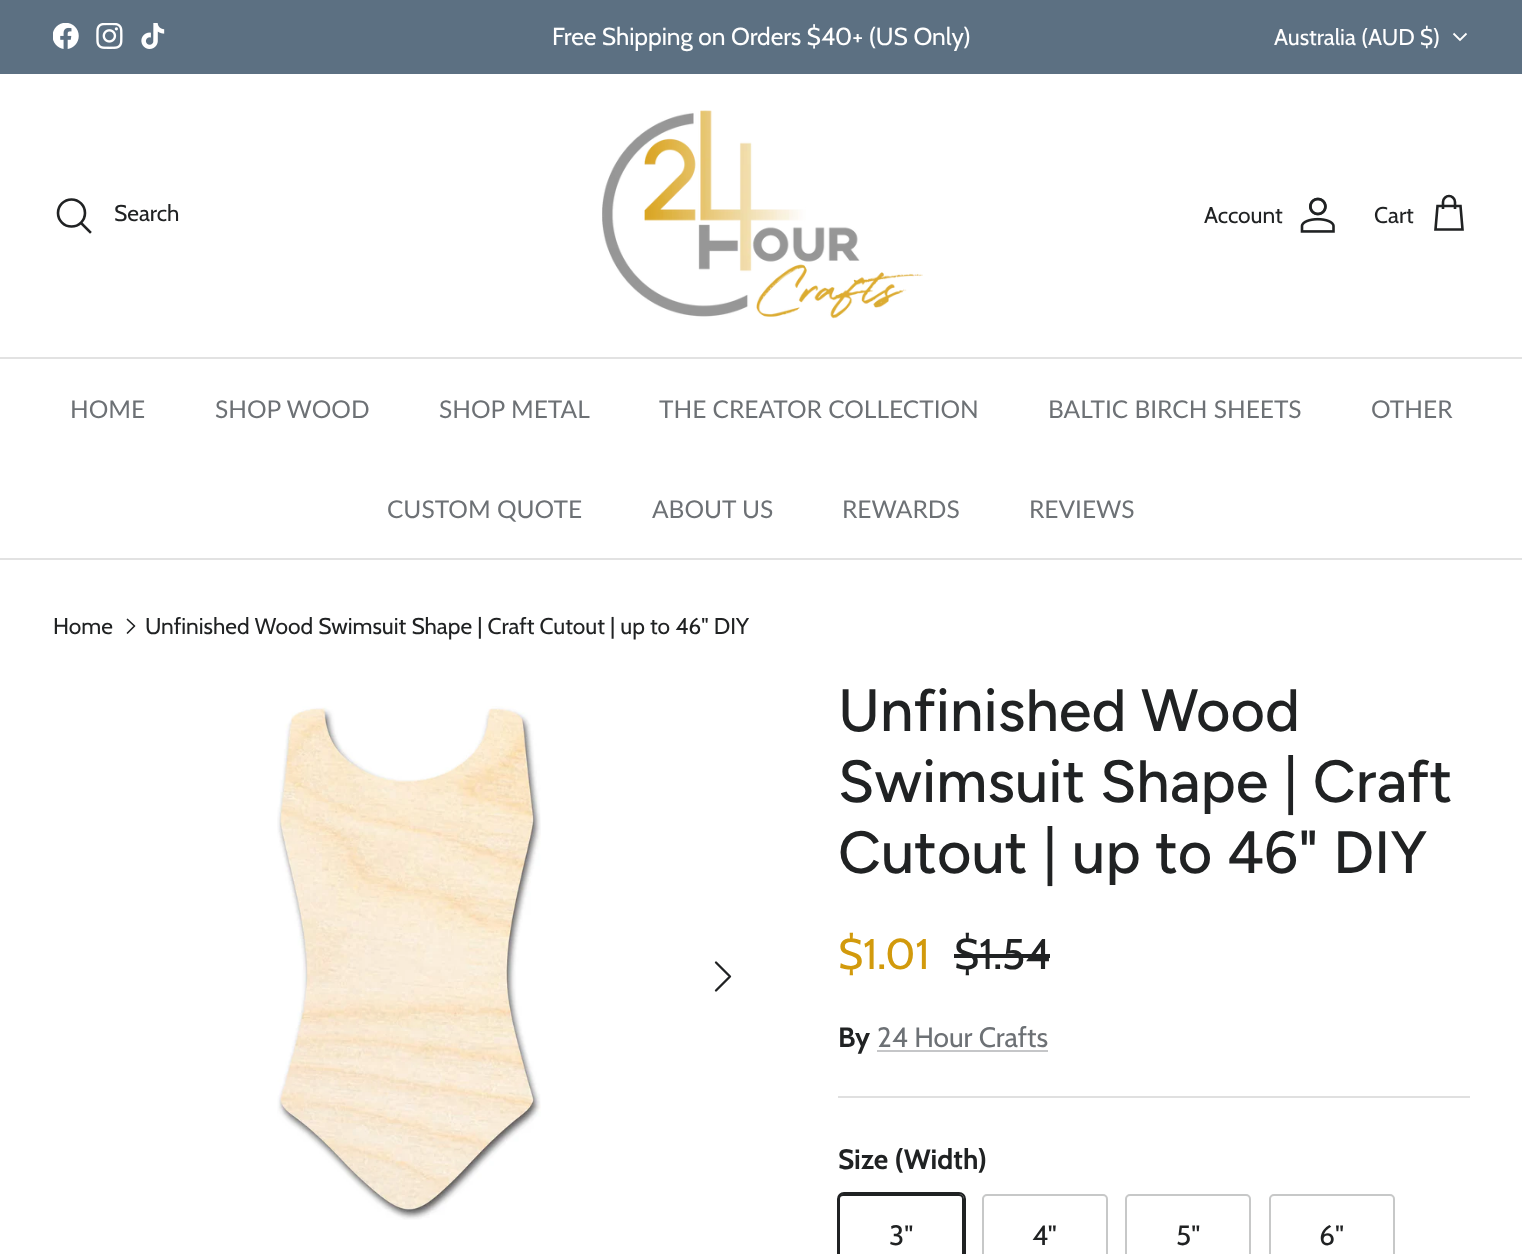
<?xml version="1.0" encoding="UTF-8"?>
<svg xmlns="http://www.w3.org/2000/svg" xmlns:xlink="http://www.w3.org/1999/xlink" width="1522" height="1254">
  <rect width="100%" height="100%" fill="#ffffff" />
  <rect width="1522" height="74" fill="#5c7082" />
  <image x="53" y="23" width="26" height="26" xlink:href="image1.png" />
  <image x="96" y="23" width="27" height="26" xlink:href="image2.png" />
  <image x="141" y="23" width="24" height="26" xlink:href="image3.png" />
  <path d="M 1466.5 33.5 l -6.5 6.5 l -6.5 -6.5" fill="none" stroke="#ffffff" stroke-width="1.8" />
  <rect y="357" width="1522" height="2" fill="#e2e2e2" />
  <circle cx="71.5" cy="213" r="13.5" fill="none" stroke="#202223" stroke-width="2.6" />
  <path d="M 82 224 l 8 8" fill="none" stroke="#202223" stroke-width="2.6" stroke-linecap="square" />
  <image x="602" y="110" width="321" height="209" xlink:href="image4.png" />
  <image x="1300" y="197" width="35" height="36" xlink:href="image5.png" />
  <path d="M 1455 209 v -7 c 0 -3.5 -3 -6 -6 -6 c -3 0 -6 2.5 -6 6 v 7 m -5.5 -3 h 23 l 2 23.5 h -27 z" fill="none" stroke="#202223" stroke-width="2.6" />
  <rect y="558" width="1522" height="2" fill="#e2e2e2" />
  <path d="M 127.5 633 l 7 -7 l -7 -6.5" fill="none" stroke="#202223" stroke-width="1.7" stroke-linecap="round" stroke-linejoin="round" />
  <image x="277" y="706" width="264" height="514" xlink:href="image6.png" />
  <path d="M 716 990.5 l 14 -14 l -14 -14" fill="none" stroke="#202223" stroke-width="2.3" stroke-linecap="round" stroke-linejoin="round" />
  <rect x="954" y="954" width="96" height="4" fill="#202223" />
  <rect x="877" y="1050" width="171" height="2" fill="#c5c6c8" />
  <rect x="838" y="1096" width="632" height="2" fill="#e0e0e0" />
  <rect x="838" y="1193" width="127" height="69" rx="6" fill="none" stroke="#202223" stroke-width="2" />
  <rect x="839" y="1195" width="124" height="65" rx="4" fill="#ffffff" stroke="#202223" stroke-width="2" />
  <rect x="983" y="1195" width="124" height="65" rx="4" fill="none" stroke="#c7c8c8" stroke-width="2" />
  <rect x="1126" y="1195" width="124" height="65" rx="4" fill="none" stroke="#c7c8c8" stroke-width="2" />
  <rect x="1270" y="1195" width="124" height="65" rx="4" fill="none" stroke="#c7c8c8" stroke-width="2" />
  <text x="552" y="45" style="font-family: Cabin; font-size: 24.5px; fill: #ffffff">Free Shipping on Orders $40+ (US Only)</text>
  <text x="1274" y="45" style="font-family: Cabin; font-size: 22.75px; fill: #ffffff">Australia (AUD $)</text>
  <text x="114" y="221" style="font-family: Cabin; font-size: 22.75px; fill: #202223">Search</text>
  <text x="1204" y="223" style="font-family: Cabin; font-size: 22.75px; fill: #202223">Account</text>
  <text x="1374" y="223" style="font-family: Cabin; font-size: 22.75px; fill: #202223">Cart</text>
  <text x="70" y="418" style="font-family: Lato; font-size: 24.5px; fill: #6d7175">HOME</text>
  <text x="215" y="418" style="font-family: Lato; font-size: 24.5px; fill: #6d7175">SHOP WOOD</text>
  <text x="439" y="418" style="font-family: Lato; font-size: 24.5px; fill: #6d7175">SHOP METAL</text>
  <text x="659" y="418" style="font-family: Lato; font-size: 24.5px; fill: #6d7175">THE CREATOR COLLECTION</text>
  <text x="1048" y="418" style="font-family: Lato; font-size: 24.5px; fill: #6d7175">BALTIC BIRCH SHEETS</text>
  <text x="1371" y="418" style="font-family: Lato; font-size: 24.5px; fill: #6d7175">OTHER</text>
  <text x="387" y="518" style="font-family: Lato; font-size: 24.5px; fill: #6d7175">CUSTOM QUOTE</text>
  <text x="652" y="518" style="font-family: Lato; font-size: 24.5px; fill: #6d7175">ABOUT US</text>
  <text x="842" y="518" style="font-family: Lato; font-size: 24.5px; fill: #6d7175">REWARDS</text>
  <text x="1029" y="518" style="font-family: Lato; font-size: 24.5px; fill: #6d7175">REVIEWS</text>
  <text x="53" y="634" style="font-family: Cabin; font-size: 22.75px; fill: #202223">Home</text>
  <text x="145" y="634" style="font-family: Cabin; font-size: 22.75px; fill: #202223">Unfinished Wood Swimsuit Shape | Craft Cutout | up to 46" DIY</text>
  <text x="838" y="731" style="font-family: Figtree; font-size: 59.5px; font-weight: 500; fill: #202223">Unfinished Wood</text>
  <text x="838" y="802" style="font-family: Figtree; font-size: 59.5px; font-weight: 500; fill: #202223">Swimsuit Shape | Craft</text>
  <text x="838" y="873" style="font-family: Figtree; font-size: 59.5px; font-weight: 500; fill: #202223">Cutout | up to 46" DIY</text>
  <text x="838" y="969" style="font-family: Cabin; font-size: 43px; fill: #d29a0c">$1.01</text>
  <text x="954" y="969" style="font-family: Cabin; font-size: 43px; fill: #202223">$1.54</text>
  <text x="838" y="1047" style="font-family: Cabin; font-size: 28px; font-weight: bold; fill: #202223">By</text>
  <text x="877" y="1047" style="font-family: Cabin; font-size: 28px; fill: #6d7175">24 Hour Crafts</text>
  <text x="838" y="1169" style="font-family: Cabin; font-size: 28px; font-weight: bold; fill: #202223">Size (Width)</text>
  <text x="889" y="1245" style="font-family: Cabin; font-size: 28px; fill: #202223">3"</text>
  <text x="1032" y="1245" style="font-family: Cabin; font-size: 28px; fill: #202223">4"</text>
  <text x="1176" y="1245" style="font-family: Cabin; font-size: 28px; fill: #202223">5"</text>
  <text x="1319" y="1245" style="font-family: Cabin; font-size: 28px; fill: #202223">6"</text>
</svg>
